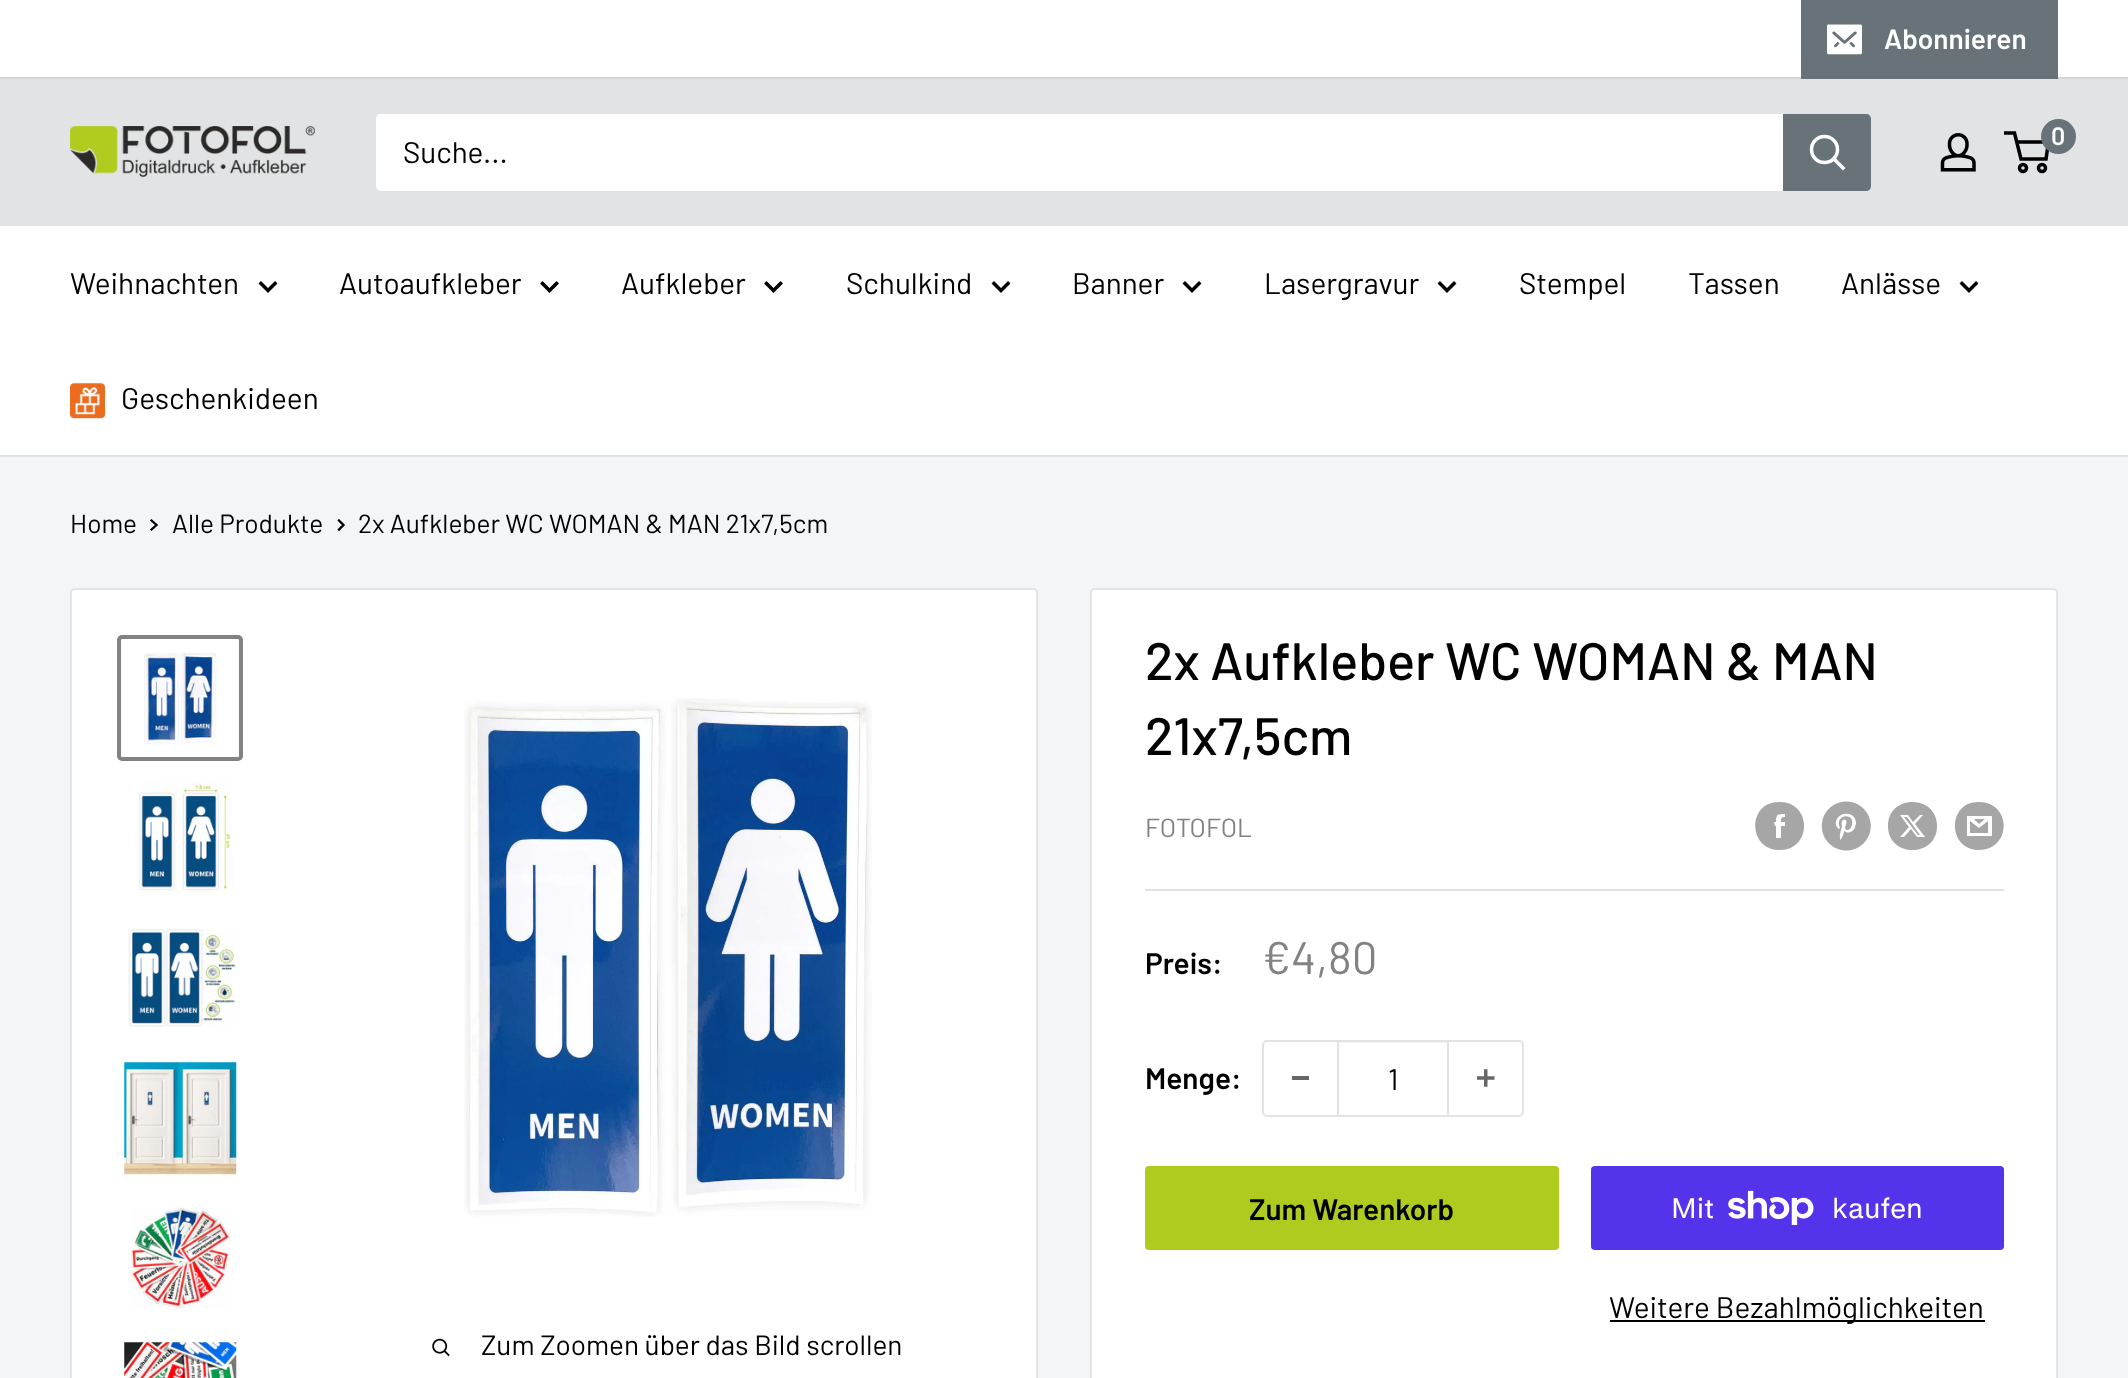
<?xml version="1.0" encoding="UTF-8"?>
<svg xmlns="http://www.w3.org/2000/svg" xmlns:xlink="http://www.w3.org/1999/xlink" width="2128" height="1378">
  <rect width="100%" height="100%" fill="#f3f5f6" />
  <rect width="2128" height="77" fill="#ffffff" />
  <rect y="77" width="2128" height="2" fill="#d1d5d7" />
  <rect x="1801" width="257" height="79" fill="#677279" />
  <image x="1827" y="24" width="35" height="31" xlink:href="image1.png" />
  <rect y="79" width="2128" height="147" fill="#e1e3e4" />
  <image x="70" y="126" width="245" height="51" xlink:href="image2.png" />
  <image x="1940" y="133" width="36" height="39" xlink:href="image3.png" />
  <circle cx="2023" cy="168" r="3.5" fill="none" stroke="#000000" stroke-width="3.5" />
  <circle cx="2042" cy="168" r="3.5" fill="none" stroke="#000000" stroke-width="3.5" />
  <path d="M 2016.5 142 h 32 l -2.5 17 h -25 l -6.5 -26 h -10.5" fill="none" stroke="#000000" stroke-width="3.5" />
  <circle cx="2058.5" cy="136.5" r="17.5" fill="#677279" />
  <rect x="376" y="114" width="1495" height="77" rx="5" fill="#ffffff" />
  <path d="M 1783 114 h 83 c 3 0 5 2 5 5 v 67 c 0 3 -2 5 -5 5 h -83 z" fill="#677279" />
  <path d="M 1843 168 l -9 -9" fill="none" stroke="#ffffff" stroke-width="3.5" stroke-linecap="square" />
  <circle cx="1824.5" cy="149.5" r="13" fill="none" stroke="#ffffff" stroke-width="3.5" />
  <rect y="226" width="2128" height="229" fill="#ffffff" />
  <rect y="455" width="2128" height="2" fill="#e1e3e4" />
  <path d="M 275 283.5 l -7 7 l -7 -7" fill="none" stroke="#000000" stroke-width="3.5" stroke-linecap="square" />
  <path d="M 556.5 283.5 l -7 7 l -7 -7" fill="none" stroke="#000000" stroke-width="3.5" stroke-linecap="square" />
  <path d="M 780.5 283.5 l -7 7 l -7 -7" fill="none" stroke="#000000" stroke-width="3.5" stroke-linecap="square" />
  <path d="M 1008 283.5 l -7 7 l -7 -7" fill="none" stroke="#000000" stroke-width="3.5" stroke-linecap="square" />
  <path d="M 1199 283.5 l -7 7 l -7 -7" fill="none" stroke="#000000" stroke-width="3.5" stroke-linecap="square" />
  <path d="M 1454 283.5 l -7 7 l -7 -7" fill="none" stroke="#000000" stroke-width="3.5" stroke-linecap="square" />
  <path d="M 1976 283.5 l -7 7 l -7 -7" fill="none" stroke="#000000" stroke-width="3.5" stroke-linecap="square" />
  <image x="70" y="383" width="35" height="36" xlink:href="image4.png" />
  <path d="M 151.5 520.5 l 5 4.5 l -5 4.5" fill="none" stroke="#000000" stroke-width="2.3" stroke-linecap="square" />
  <path d="M 339 520.5 l 4.5 4.5 l -4.5 4.5" fill="none" stroke="#000000" stroke-width="2.3" stroke-linecap="square" />
  <rect x="1091" y="589" width="966" height="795" rx="4" fill="#ffffff" stroke="#e1e3e4" stroke-width="2" />
  <path d="M 1780 850 c -33 0 -33 -49 0 -48 c 32 0 32 48 0 48 z m 5 -28 h -4 c 0 -3 0 -5 4 -5 v -3 c -8 0 -9 1 -9 8 h -2 l 1 4 h 1 v 12 h 5 v -12 h 4 z" fill="#a6a6a6" fill-rule="evenodd" />
  <image x="1821" y="801" width="50" height="50" xlink:href="image5.png" />
  <path d="M 1937 826 c 0 32 -49 32 -49 0 c 0 -32 49 -32 49 0 z m -14 -11 h -3 l -7 7 l -5 -7 h -8 l 9 12 l -9 10 h 4 l 7 -8 l 6 8 h 8 l -10 -13 z m -3 20 h -2 l -14 -18 h 3 z" fill="#a6a6a6" fill-rule="evenodd" />
  <path d="M 1979 850 c -32 0 -32 -49 0 -48 c 33 0 33 48 0 48 z m -5 -31 h 11 l -6 5 z m 14 2 v 12 h -18 v -12 l 9 7 z m 4 -5 h -25 v 20 h 25 z" fill="#a6a6a6" />
  <rect x="1145" y="889" width="859" height="2" fill="#e1e3e4" />
  <rect x="1263" y="1041" width="260" height="75" rx="4" fill="none" stroke="#e1e3e4" stroke-width="2" />
  <rect x="1292" y="1076" width="17" height="4" fill="#666666" />
  <rect x="1339" y="1042" width="108" height="1" fill="#e1e3e4" fill-opacity="0.4" />
  <rect x="1447" y="1041" width="2" height="74" fill="#e1e3e4" />
  <rect x="1337" y="1041" width="2" height="74" fill="#e1e3e4" />
  <image x="1477" y="1069" width="18" height="18" xlink:href="image6.png" />
  <rect x="1145" y="1166" width="414" height="84" rx="4" fill="#b0cb1f" />
  <rect x="1591" y="1166" width="413" height="84" rx="4" fill="#5433eb" />
  <image x="1728" y="1190" width="86" height="35" xlink:href="image7.png" />
  <rect x="1610" y="1320" width="375" height="2" fill="#000000" />
  <rect x="71" y="589" width="966" height="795" rx="4" fill="#ffffff" stroke="#e1e3e4" stroke-width="2" />
  <rect x="119" y="637" width="122" height="122" rx="3" fill="none" stroke="#808283" stroke-width="4" />
  <image x="144" y="652" width="73" height="94" xlink:href="image8.png" />
  <image x="138" y="782" width="95" height="111" xlink:href="image9.png" />
  <image x="128" y="929" width="108" height="98" xlink:href="image10.png" />
  <image x="124" y="1062" width="113" height="113" xlink:href="image11.png" />
  <image x="130" y="1207" width="101" height="102" xlink:href="image12.png" />
  <image x="124" y="1342" width="113" height="36" xlink:href="image13.png" />
  <image x="464" y="698" width="408" height="519" xlink:href="image14.png" />
  <image x="432" y="1338" width="18" height="19" xlink:href="image15.png" />
  <text x="1884" y="49" style="font-family: Barlow; font-size: 28px; font-weight: 600; fill: #ffffff">Abonnieren</text>
  <text x="2051" y="145" style="font-family: Barlow; font-size: 25px; font-weight: 600; fill: #ffffff">0</text>
  <text x="403" y="163" style="font-family: Barlow; font-size: 29.75px; fill: #000000">Suche...</text>
  <text x="70" y="294" style="font-family: Barlow; font-size: 29.75px; fill: #000000">Weihnachten</text>
  <text x="339" y="294" style="font-family: Barlow; font-size: 29.75px; fill: #000000">Autoaufkleber</text>
  <text x="621" y="294" style="font-family: Barlow; font-size: 29.75px; fill: #000000">Aufkleber</text>
  <text x="846" y="294" style="font-family: Barlow; font-size: 29.75px; fill: #000000">Schulkind</text>
  <text x="1072" y="294" style="font-family: Barlow; font-size: 29.75px; fill: #000000">Banner</text>
  <text x="1264" y="294" style="font-family: Barlow; font-size: 29.75px; fill: #000000">Lasergravur</text>
  <text x="1519" y="294" style="font-family: Barlow; font-size: 29.75px; fill: #000000">Stempel</text>
  <text x="1688" y="294" style="font-family: Barlow; font-size: 29.75px; fill: #000000">Tassen</text>
  <text x="1841" y="294" style="font-family: Barlow; font-size: 29.75px; fill: #000000">Anlässe</text>
  <text x="121" y="409" style="font-family: Barlow; font-size: 29.75px; fill: #000000">Geschenkideen</text>
  <text x="70" y="533" style="font-family: Barlow; font-size: 26.25px; fill: #000000">Home</text>
  <text x="172" y="533" style="font-family: Barlow; font-size: 26.25px; fill: #000000">Alle Produkte</text>
  <text x="358" y="533" style="font-family: Barlow; font-size: 26.25px; fill: #000000">2x Aufkleber WC WOMAN &amp; MAN 21x7,5cm</text>
  <text x="1145" y="680" style="font-family: Barlow; font-size: 52.5px; font-weight: 500; fill: #000000">2x Aufkleber WC WOMAN &amp; MAN</text>
  <text x="1145" y="755" style="font-family: Barlow; font-size: 52.5px; font-weight: 500; fill: #000000">21x7,5cm</text>
  <text x="1145" y="837" style="font-family: Barlow; font-size: 26.25px; fill: #808283">FOTOFOL</text>
  <text x="1145" y="974" style="font-family: Barlow; font-size: 29.75px; font-weight: 600; fill: #000000">Preis:</text>
  <text x="1262" y="974" style="font-family: Barlow; font-size: 45.5px; fill: #808283">€4,80</text>
  <text x="1145" y="1089" style="font-family: Barlow; font-size: 29.75px; font-weight: 600; fill: #000000">Menge:</text>
  <text x="1388" y="1090" style="font-family: Barlow; font-size: 29.75px; fill: #000000">1</text>
  <text x="1249" y="1220" style="font-family: Barlow; font-size: 29.75px; font-weight: 600; fill: #000000">Zum Warenkorb</text>
  <text x="1671" y="1218" style="font-family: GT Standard; font-size: 28px; fill: #ffffff">Mit</text>
  <text x="1832" y="1218" style="font-family: GT Standard; font-size: 28px; fill: #ffffff">kaufen</text>
  <text x="1609" y="1318" style="font-family: Barlow; font-size: 29.75px; fill: #000000">Weitere Bezahlmöglichkeiten</text>
  <text x="481" y="1355" style="font-family: Barlow; font-size: 28px; fill: #000000">Zum Zoomen über das Bild scrollen</text>
</svg>
